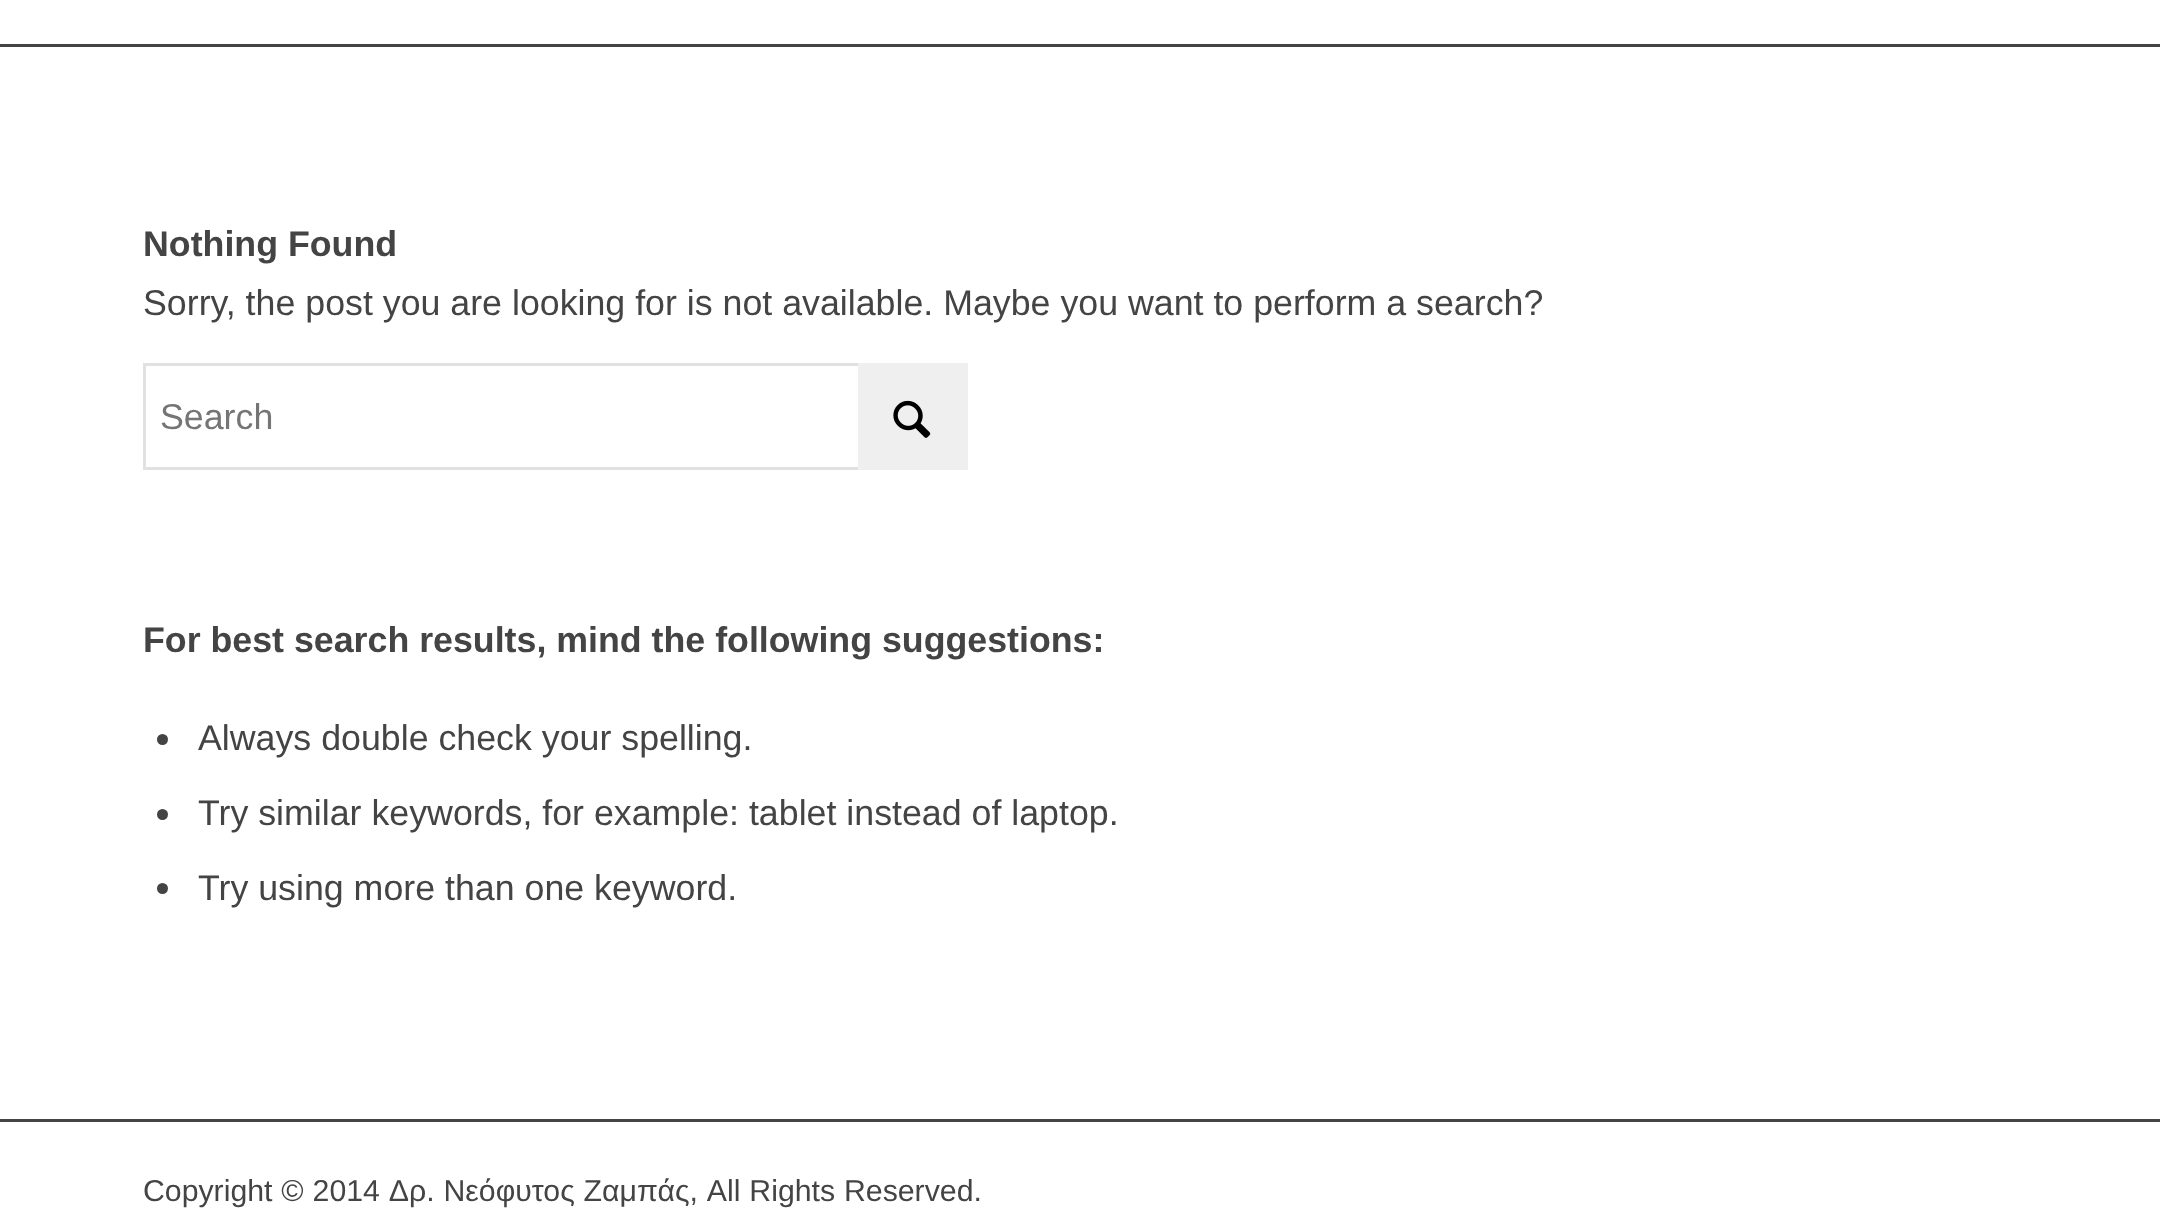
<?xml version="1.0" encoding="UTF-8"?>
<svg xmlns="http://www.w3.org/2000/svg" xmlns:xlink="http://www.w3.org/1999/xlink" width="2160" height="1216">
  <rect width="100%" height="100%" fill="#ffffff" />
  <rect y="44" width="2160" height="3" fill="#444444" />
  <rect x="144.5" y="364.5" width="822" height="104" fill="none" stroke="#e1e1e1" stroke-width="3" />
  <rect x="858" y="363" width="110" height="107" fill="#efefef" />
  <image x="893" y="400" width="38" height="38" xlink:href="image1.png" />
  <circle cx="162.5" cy="739.5" r="5.5" fill="#444444" />
  <circle cx="162.5" cy="814.5" r="5.5" fill="#444444" />
  <circle cx="162.5" cy="888.5" r="5.5" fill="#444444" />
  <rect y="1119" width="2160" height="3" fill="#444444" />
  <text x="143" y="256" style="font-family: Liberation Sans; font-size: 35.75px; font-weight: bold; fill: #444444">Nothing Found</text>
  <text x="143" y="315" style="font-family: Liberation Sans; font-size: 35.75px; fill: #444444">Sorry, the post you are looking for is not available. Maybe you want to perform a search?</text>
  <text x="160" y="429" style="font-family: Liberation Sans; font-size: 35.75px; fill: #757575">Search</text>
  <text x="143" y="652" style="font-family: Liberation Sans; font-size: 35.75px; font-weight: bold; fill: #444444">For best search results, mind the following suggestions:</text>
  <text x="198" y="750" style="font-family: Liberation Sans; font-size: 35.75px; fill: #444444">Always double check your spelling.</text>
  <text x="198" y="825" style="font-family: Liberation Sans; font-size: 35.75px; fill: #444444">Try similar keywords, for example: tablet instead of laptop.</text>
  <text x="198" y="900" style="font-family: Liberation Sans; font-size: 35.75px; fill: #444444">Try using more than one keyword.</text>
  <text x="143" y="1201" word-spacing="0.5" style="font-family: Liberation Sans; font-size: 30.25px; fill: #444444">Copyright © 2014 Δρ. Νεόφυτος Ζαμπάς, All Rights Reserved.</text>
</svg>
